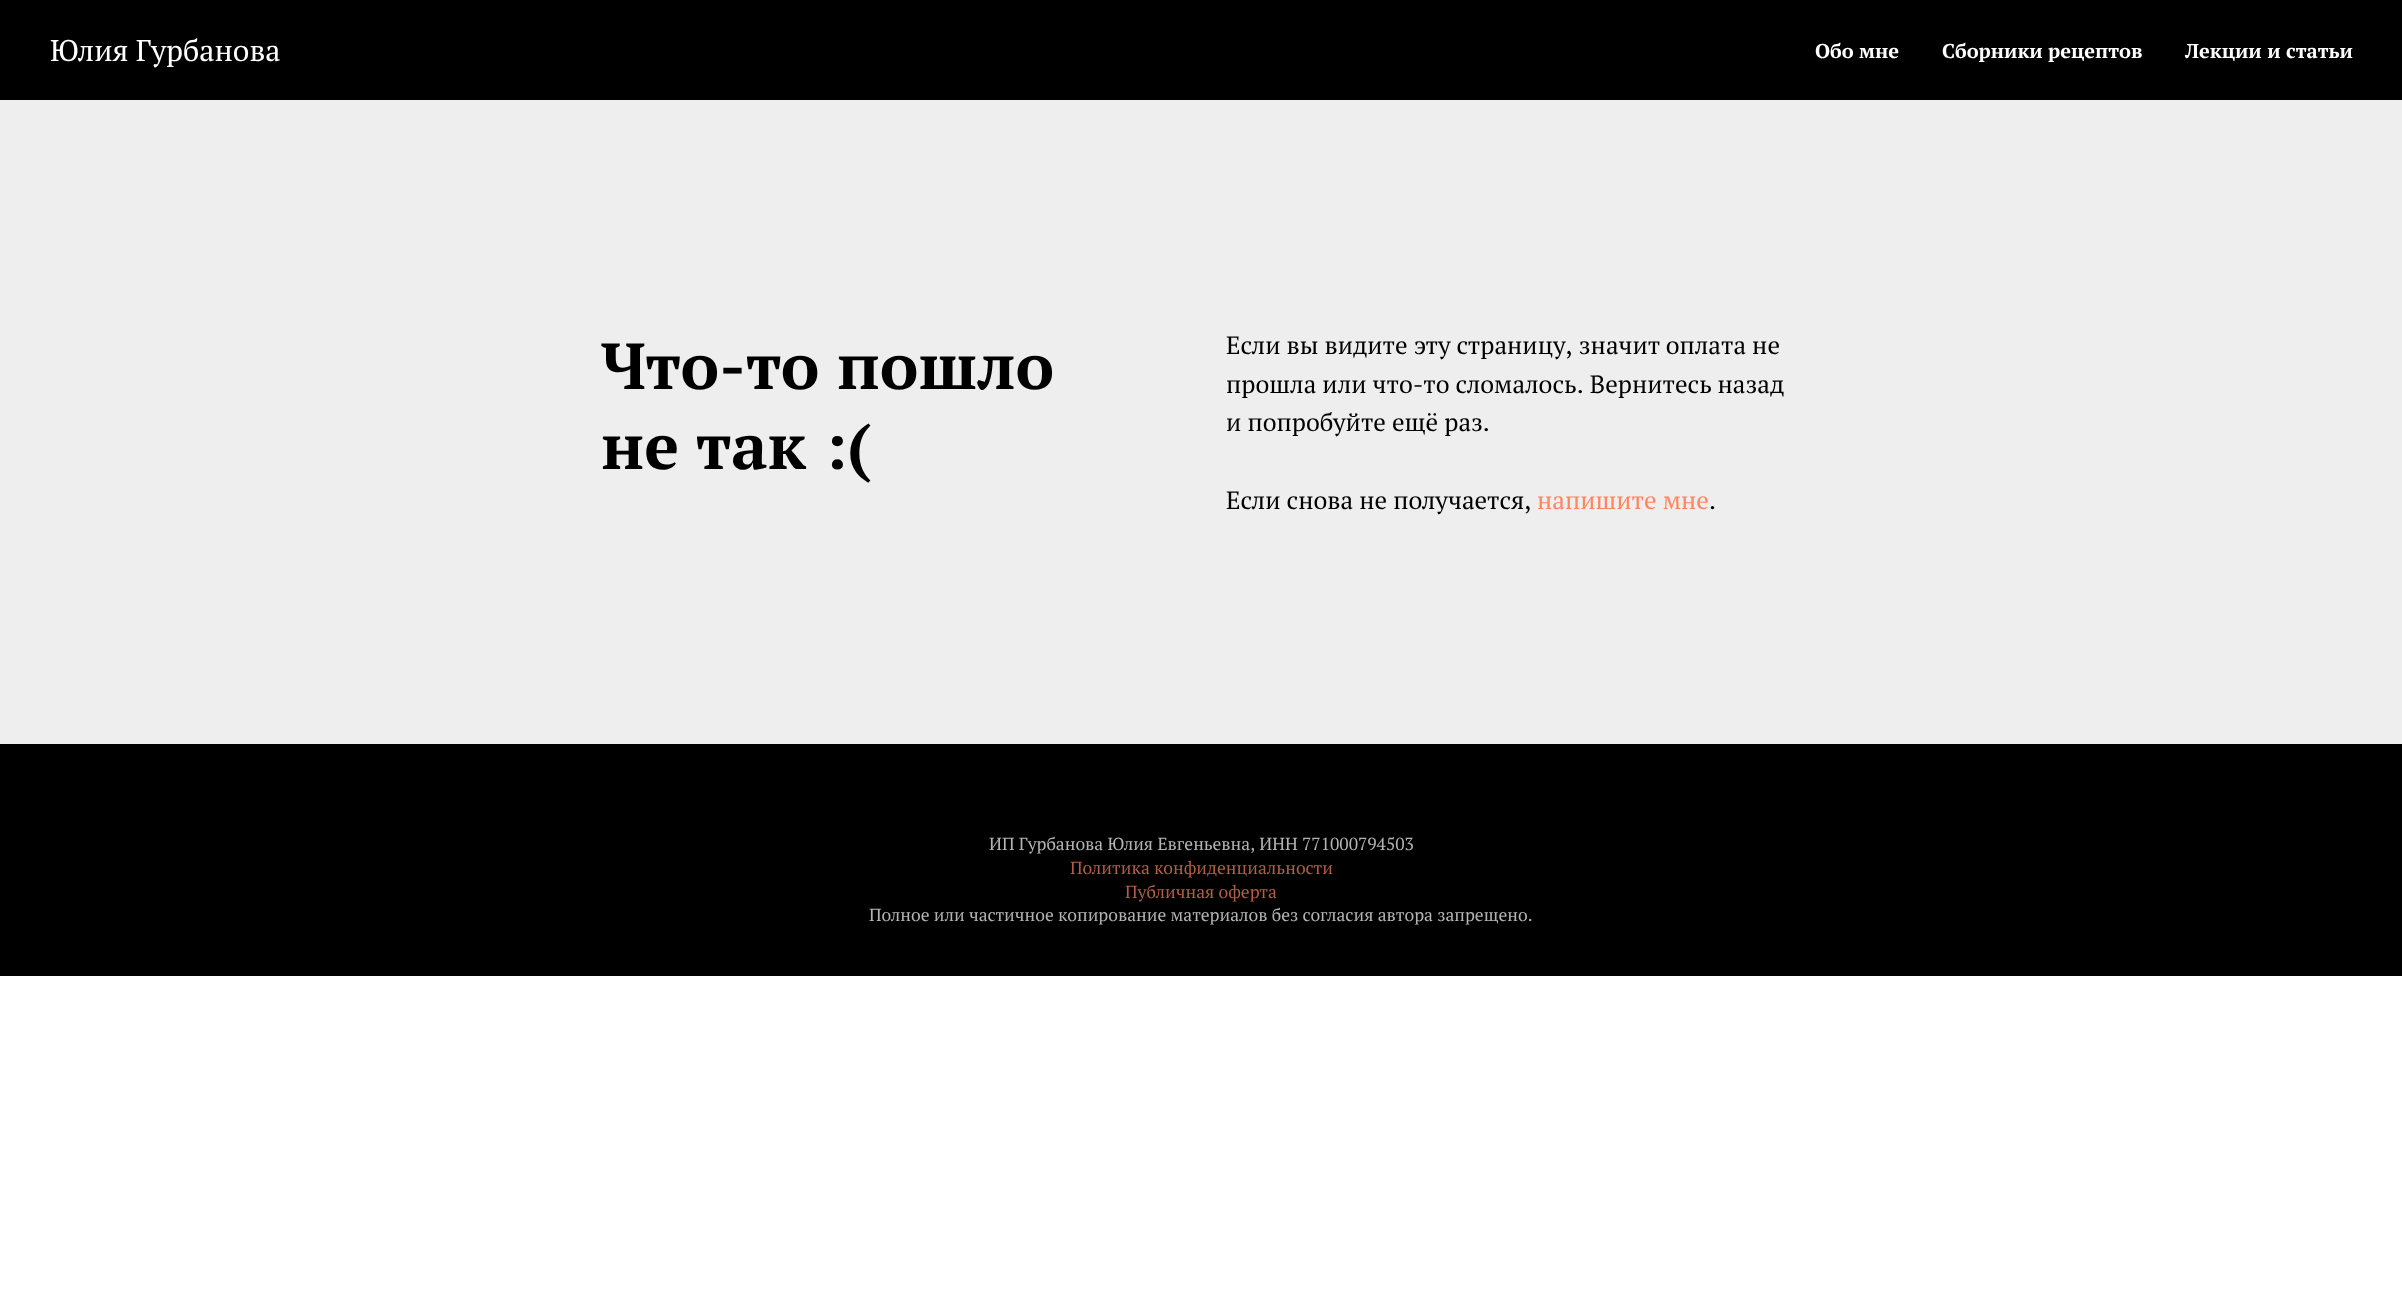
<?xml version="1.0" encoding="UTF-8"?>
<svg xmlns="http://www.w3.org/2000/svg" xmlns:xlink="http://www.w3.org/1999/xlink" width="2402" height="1289">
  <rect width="100%" height="100%" fill="#ffffff" />
  <rect width="2402" height="100" fill="#000000" />
  <rect y="100" width="2402" height="644" fill="#eeeeee" />
  <rect y="744" width="2402" height="232" fill="#000000" />
  <text x="50" y="61" style="font-family: PT Serif; font-size: 30px; fill: #ffffff">Юлия Гурбанова</text>
  <text x="1815" y="58" style="font-family: PT Serif; font-size: 20px; font-weight: bold; fill: #ffffff">Обо мне</text>
  <text x="1942" y="58" style="font-family: PT Serif; font-size: 20px; font-weight: bold; fill: #ffffff">Сборники рецептов</text>
  <text x="2185" y="58" style="font-family: PT Serif; font-size: 20px; font-weight: bold; fill: #ffffff">Лекции и статьи</text>
  <text x="601" y="389" style="font-family: PT Serif; font-size: 65px; font-weight: bold; fill: #000000">Что-то пошло</text>
  <text x="601" y="469" word-spacing="1" style="font-family: PT Serif; font-size: 65px; font-weight: bold; fill: #000000">не так :(</text>
  <text x="1226" y="354" style="font-family: PT Serif; font-size: 25px; fill: #000000">Если вы видите эту страницу, значит оплата не</text>
  <text x="1226" y="393" style="font-family: PT Serif; font-size: 25px; fill: #000000">прошла или что-то сломалось. Вернитесь назад</text>
  <text x="1226" y="431" style="font-family: PT Serif; font-size: 25px; fill: #000000">и попробуйте ещё раз.</text>
  <text x="1226" y="509" style="font-family: PT Serif; font-size: 25px; fill: #000000">Если снова не получается,</text>
  <text x="1537" y="509" style="font-family: PT Serif; font-size: 25px; fill: #ff8562">напишите мне</text>
  <text x="1709" y="509" style="font-family: PT Serif; font-size: 25px; fill: #000000">.</text>
  <text x="989" y="850" style="font-family: PT Serif; font-size: 17.5px; fill: #b3b3b3">ИП Гурбанова Юлия Евгеньевна, ИНН 771000794503</text>
  <text x="1070" y="874" style="font-family: PT Serif; font-size: 17.5px; fill: #b35d45">Политика конфиденциальности</text>
  <text x="1125" y="898" style="font-family: PT Serif; font-size: 17.5px; fill: #b35d45">Публичная оферта</text>
  <text x="869" y="921" style="font-family: PT Serif; font-size: 17.5px; fill: #b3b3b3">Полное или частичное копирование материалов без согласия автора запрещено.</text>
</svg>
